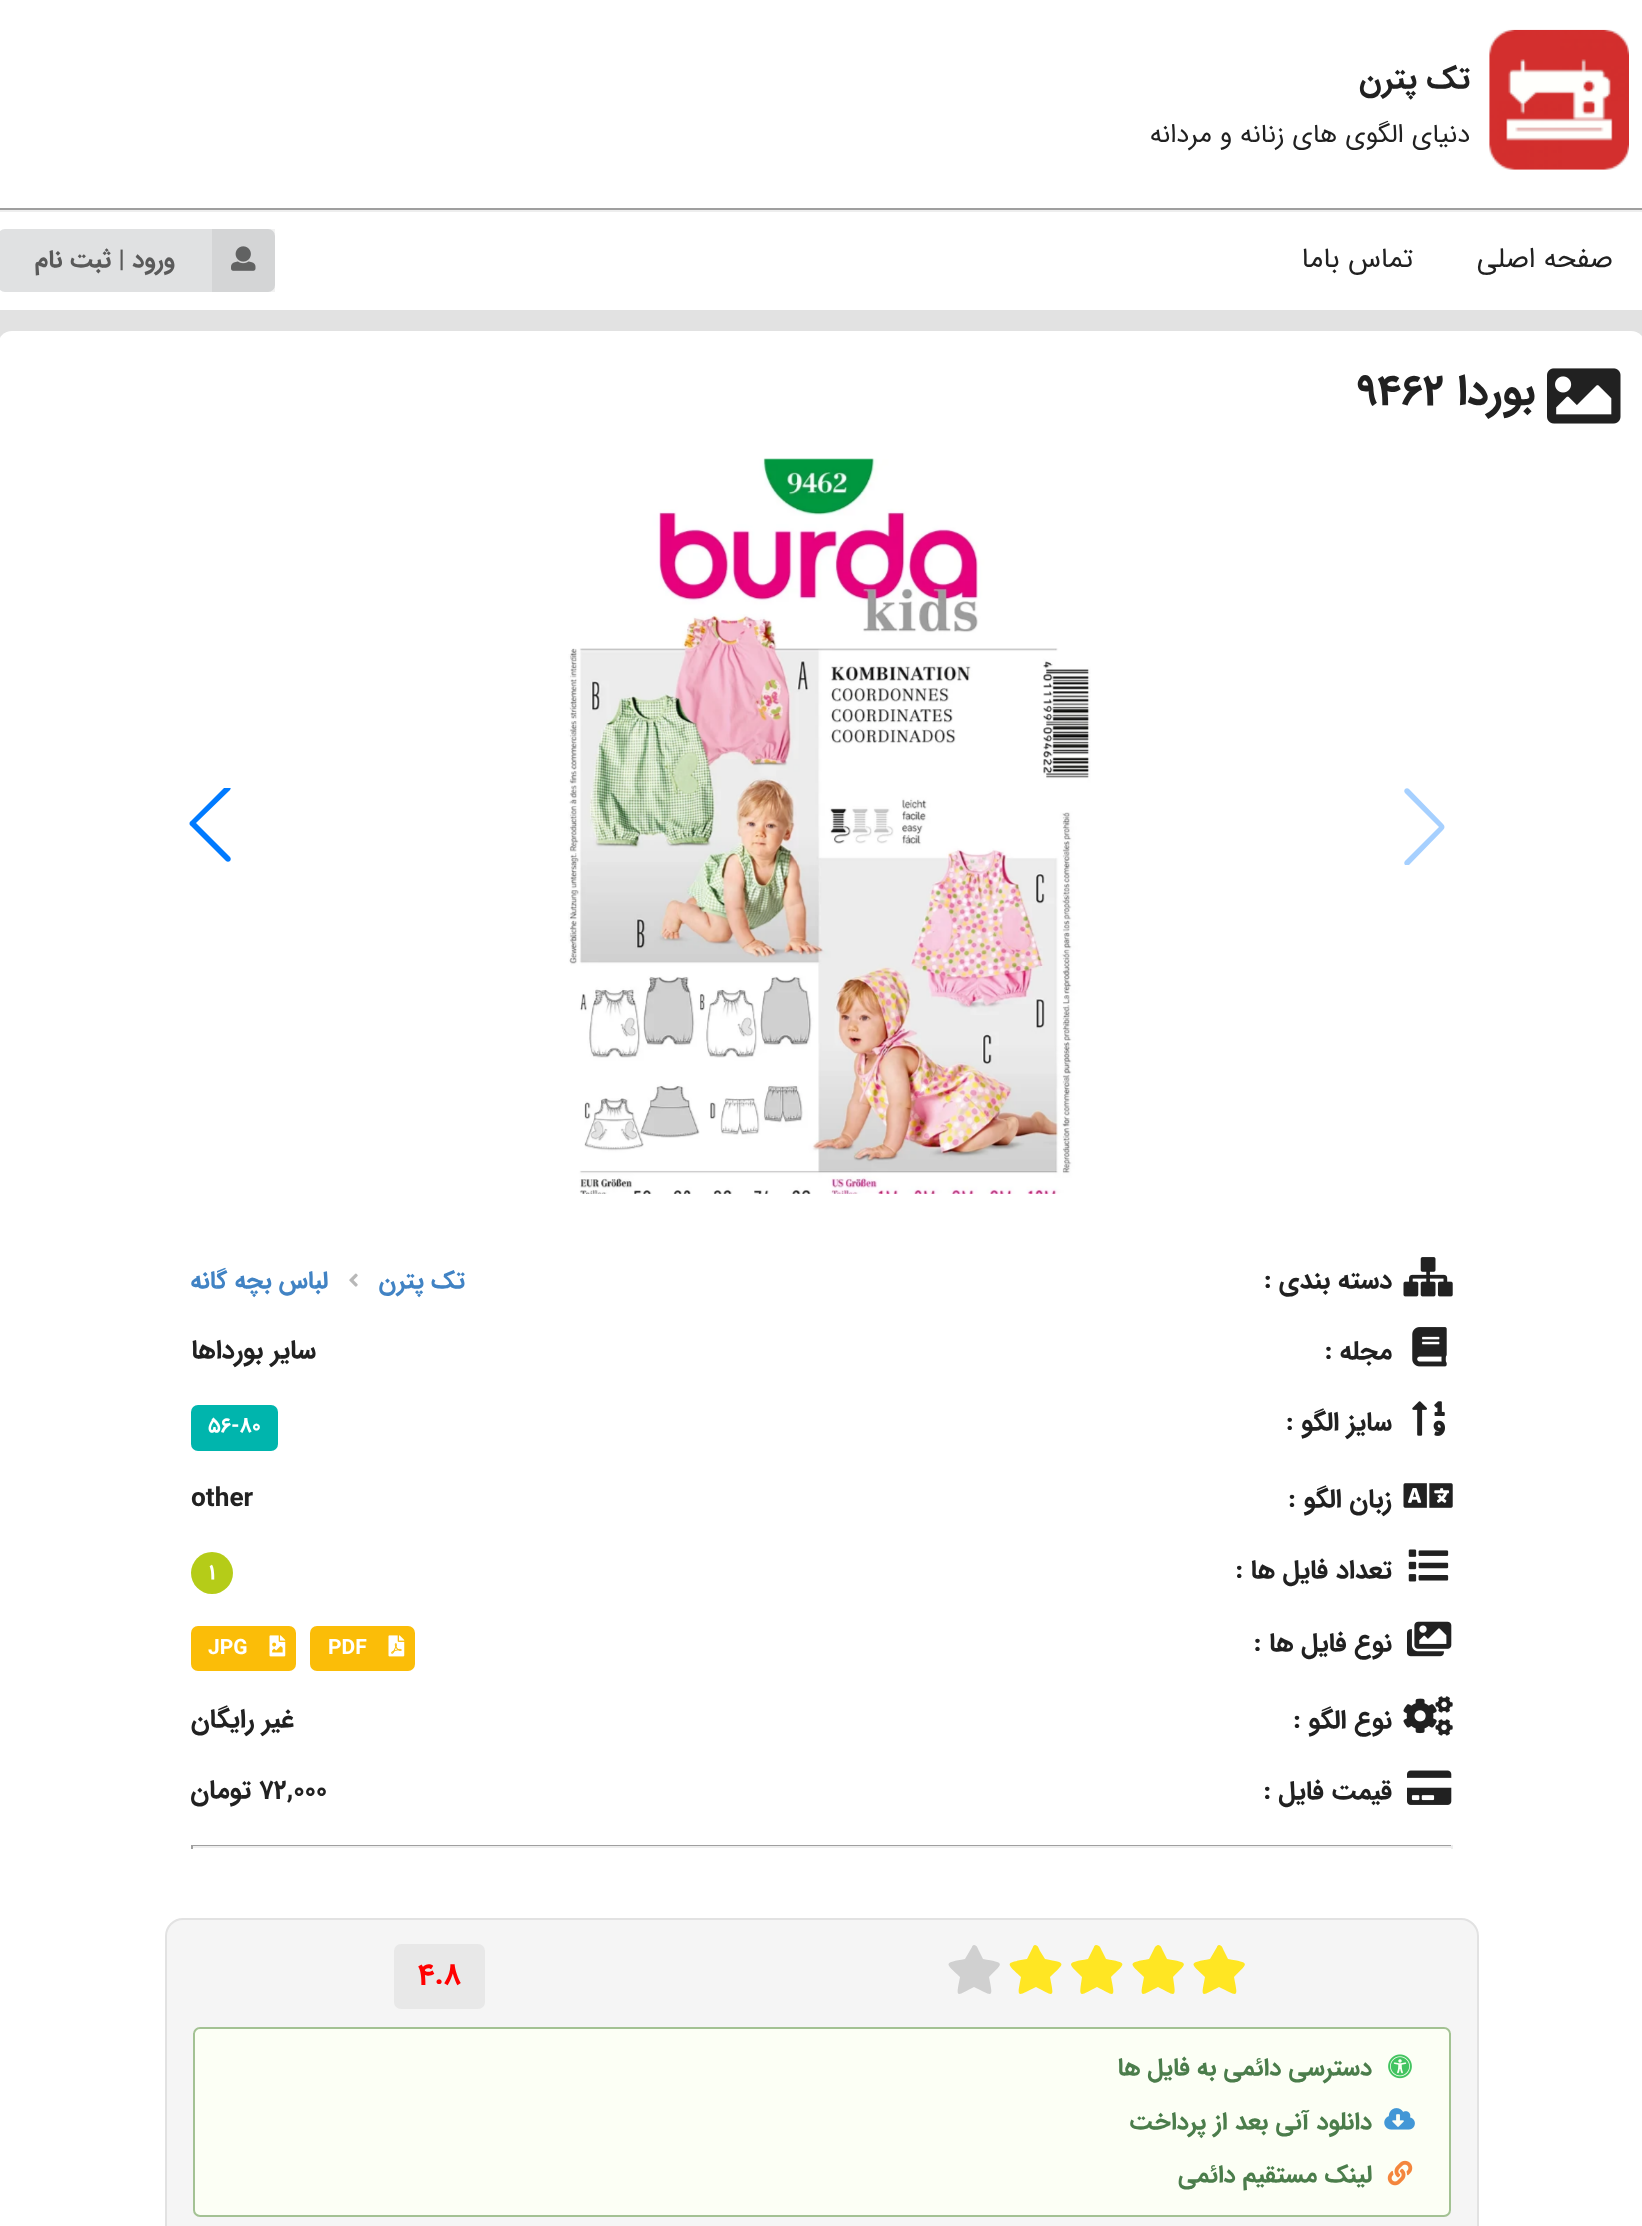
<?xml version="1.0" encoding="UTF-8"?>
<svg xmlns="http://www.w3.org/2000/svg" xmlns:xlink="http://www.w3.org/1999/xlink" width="1642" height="2226">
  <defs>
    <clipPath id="clip1"><rect x="1386" y="788" width="77" height="77" /></clipPath>
    <clipPath id="clip2"><rect x="172" y="788" width="77" height="77" /></clipPath>
  </defs>
  <rect width="100%" height="100%" fill="#ffffff" />
  <image x="1489" y="29" width="140" height="141" xlink:href="image1.png" />
  <rect y="208" width="1642" height="2" fill="#9f9f9f" />
  <rect y="210" width="1642" height="2" fill="#eeeeee" />
  <rect y="310" width="1642" height="28" fill="#e2e2e2" />
  <rect x="-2" y="229" width="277" height="63" rx="7" fill="#e0e1e2" />
  <rect x="212" y="229" width="63" height="63" fill="#000000" fill-opacity="0.05" />
  <image x="231" y="246" width="25" height="25" xlink:href="image2.png" />
  <rect x="-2" y="331" width="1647" height="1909" rx="14" fill="#ffffff" />
  <image x="1547" y="368" width="74" height="56" xlink:href="image3.png" />
  <g clip-path="url(#clip1)">
    <path d="M 1405 865 c -1 -1 -1 -3 0 -4 l 34 -34 l -34 -34 c -1 -1 -1 -3 0 -4 c 1 -1 3 -1 4 0 l 34 35 c 2 2 2 4 0 6 l -34 35 c -1 1 -3 1 -4 0 z" fill="#a6d0ff" />
  </g>
  <image x="568" y="458" width="523" height="736" xlink:href="image4.png" />
  <g clip-path="url(#clip2)">
    <path d="M 230 786 c 1 1 1 2 0 4 l -34 33 l 34 34 c 1 1 1 3 0 4 c -1 1 -3 1 -4 0 l -35 -35 c -2 -1 -2 -4 0 -5 l 35 -35 c 1 -1 3 -1 4 0 z" fill="#007aff" />
  </g>
  <image x="1403" y="1257" width="50" height="40" xlink:href="image5.png" />
  <image x="349" y="1273" width="9" height="14" xlink:href="image6.png" />
  <image x="1412" y="1327" width="35" height="40" xlink:href="image7.png" />
  <image x="1412" y="1401" width="33" height="35" xlink:href="image8.png" />
  <rect x="191" y="1405" width="87" height="46" rx="7" fill="#00b5ad" />
  <image x="1403" y="1483" width="50" height="25" xlink:href="image9.png" />
  <image x="1408" y="1549" width="41" height="33" xlink:href="image10.png" />
  <circle cx="212" cy="1573" r="21" fill="#b5cc18" />
  <image x="1407" y="1621" width="45" height="36" xlink:href="image11.png" />
  <rect x="310" y="1626" width="105" height="45" rx="7" fill="#fbbd08" />
  <image x="388" y="1635" width="17" height="22" xlink:href="image12.png" />
  <rect x="191" y="1626" width="105" height="45" rx="7" fill="#fbbd08" />
  <image x="269" y="1635" width="17" height="22" xlink:href="image13.png" />
  <image x="1403" y="1696" width="50" height="40" xlink:href="image14.png" />
  <image x="1407" y="1770" width="45" height="35" xlink:href="image15.png" />
  <rect x="191" y="1845" width="1262" height="1" fill="#9f9f9f" />
  <rect x="1451" y="1845" width="2" height="4" fill="#eeeeee" />
  <rect x="191" y="1846" width="1262" height="2" fill="#eeeeee" />
  <rect x="191" y="1845" width="2" height="4" fill="#9f9f9f" />
  <rect x="166" y="1919" width="1312" height="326" rx="17" fill="#f5f5f5" stroke="#e2e2e2" stroke-width="2" />
  <path d="M 1217 1947 l -7 12 c -21 4 -21 3 -5 18 c -4 21 -5 20 14 10 c 20 10 19 11 15 -10 c 15 -15 16 -14 -6 -18 l -4 -8 c -1 -2 -2 -6 -5 -6 c -1 0 -2 1 -2 2 z" fill="#ffe623" />
  <path d="M 1155 1947 l -6 12 c -21 4 -21 3 -5 18 c -4 21 -5 20 14 10 c 19 10 18 11 15 -10 c 15 -15 16 -14 -6 -18 l -4 -8 c -1 -2 -2 -6 -5 -6 c -1 0 -2 1 -3 2 z" fill="#ffe623" />
  <path d="M 1094 1947 l -6 12 c -22 4 -21 3 -6 18 c -3 21 -4 20 15 10 c 19 10 18 11 14 -10 c 16 -15 16 -14 -5 -18 l -4 -8 c -1 -2 -2 -6 -6 -6 c -1 0 -2 1 -2 2 z" fill="#ffe623" />
  <path d="M 1033 1947 l -6 12 c -22 4 -22 3 -6 18 c -4 21 -5 20 15 10 c 19 10 18 11 14 -10 c 16 -15 16 -14 -5 -18 l -5 -8 c -1 -2 -2 -6 -5 -6 c -1 0 -2 1 -2 2 z" fill="#ffe623" />
  <path d="M 972 1947 l -7 12 c -21 4 -21 3 -5 18 c -4 21 -5 20 14 10 c 20 10 19 11 15 -10 c 15 -15 16 -14 -6 -18 l -4 -8 c -1 -2 -2 -6 -5 -6 c -1 0 -2 1 -2 2 z" fill="#d0d0d0" />
  <rect x="394" y="1944" width="91" height="65" rx="7" fill="#e8e8e8" />
  <rect x="194" y="2028" width="1256" height="188" rx="6" fill="#fcfff5" stroke="#a3c293" stroke-width="2" />
  <image x="1388" y="2054" width="24" height="25" xlink:href="image16.png" />
  <image x="1384" y="2108" width="31" height="22" xlink:href="image17.png" />
  <image x="1387" y="2160" width="26" height="26" xlink:href="image18.png" />
  <text x="1470" y="88" style="font-family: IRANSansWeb; font-size: 31.5px; font-weight: bold; direction: rtl; fill: #212121">تک پترن</text>
  <text x="1470" y="142" style="font-family: IRANSansWeb; font-size: 26.25px; direction: rtl; fill: #212121">دنیای الگوی های زنانه و مردانه</text>
  <text x="1613" y="267" style="font-family: IRANSansWeb; font-size: 28px; direction: rtl; fill: #212121">صفحه اصلی</text>
  <text x="1413" y="267" style="font-family: IRANSansWeb; font-size: 28px; direction: rtl; fill: #212121">تماس باما</text>
  <text x="175" y="267" style="font-family: IRANSansWeb; font-size: 24.5px; font-weight: bold; direction: rtl; fill: #5a5a5a">ورود | ثبت نام</text>
  <text x="1535" y="404" style="font-family: IRANSansWeb; font-size: 43px; font-weight: bold; direction: rtl; fill: #212121">بوردا</text>
  <text x="1357" y="404" style="font-family: IRANSansWeb; font-size: 43px; font-weight: bold; fill: #212121">۹۴۶۲</text>
  <text x="1392" y="1288" style="font-family: IRANSansWeb; font-size: 26.25px; font-weight: bold; direction: rtl; fill: #212121">دسته‌ بندی :</text>
  <text x="465" y="1288" style="font-family: IRANSansWeb; font-size: 24.5px; font-weight: bold; direction: rtl; fill: #4183c4">تک پترن</text>
  <text x="328" y="1288" style="font-family: IRANSansWeb; font-size: 24.5px; font-weight: bold; direction: rtl; fill: #4183c4">لباس بچه گانه</text>
  <text x="1392" y="1359" style="font-family: IRANSansWeb; font-size: 26.25px; font-weight: bold; direction: rtl; fill: #212121">مجله :</text>
  <text x="316" y="1358" style="font-family: IRANSansWeb; font-size: 26.25px; font-weight: bold; direction: rtl; fill: #212121">سایر بورداها</text>
  <text x="1392" y="1430" style="font-family: IRANSansWeb; font-size: 26.25px; font-weight: bold; direction: rtl; fill: #212121">سایز الگو :</text>
  <text x="208" y="1432" style="font-family: IRANSansWeb; font-size: 21px; font-weight: bold; fill: #ffffff">۵۶-۸۰</text>
  <text x="1392" y="1507" style="font-family: IRANSansWeb; font-size: 26.25px; font-weight: bold; direction: rtl; fill: #212121">زبان الگو :</text>
  <text x="191" y="1506" style="font-family: IRANSansWeb; font-size: 26.25px; font-weight: bold; fill: #212121">other</text>
  <text x="1392" y="1578" style="font-family: IRANSansWeb; font-size: 26.25px; font-weight: bold; direction: rtl; fill: #212121">تعداد فایل ها :</text>
  <text x="209" y="1579" style="font-family: IRANSansWeb; font-size: 21px; font-weight: bold; fill: #ffffff">۱</text>
  <text x="1392" y="1651" style="font-family: IRANSansWeb; font-size: 26.25px; font-weight: bold; direction: rtl; fill: #212121">نوع فایل ها :</text>
  <text x="328" y="1654" style="font-family: IRANSansWeb; font-size: 21px; font-weight: bold; fill: #ffffff">PDF</text>
  <text x="208" y="1654" style="font-family: IRANSansWeb; font-size: 21px; font-weight: bold; fill: #ffffff">JPG</text>
  <text x="1392" y="1728" style="font-family: IRANSansWeb; font-size: 26.25px; font-weight: bold; direction: rtl; fill: #212121">نوع الگو :</text>
  <text x="294" y="1727" style="font-family: IRANSansWeb; font-size: 26.25px; font-weight: bold; direction: rtl; fill: #212121">غیر رایگان</text>
  <text x="1392" y="1799" style="font-family: IRANSansWeb; font-size: 26.25px; font-weight: bold; direction: rtl; fill: #212121">قیمت فایل :</text>
  <text x="259" y="1798" style="font-family: IRANSansWeb; font-size: 26.25px; font-weight: bold; fill: #212121">۷۲,۰۰۰</text>
  <text x="251" y="1798" style="font-family: IRANSansWeb; font-size: 26.25px; font-weight: bold; direction: rtl; fill: #212121">تومان</text>
  <text x="418" y="1984" style="font-family: IRANSansWeb; font-size: 30px; font-weight: bold; fill: #ff0000">۴.۸</text>
  <text x="1372" y="2075" style="font-family: IRANSansWeb; font-size: 24.5px; font-weight: bold; direction: rtl; fill: #4b7d4b">دسترسی دائمی به فایل ها</text>
  <text x="1372" y="2129" style="font-family: IRANSansWeb; font-size: 24.5px; font-weight: bold; direction: rtl; fill: #4b7d4b">دانلود آنی بعد از پرداخت</text>
  <text x="1372" y="2182" style="font-family: IRANSansWeb; font-size: 24.5px; font-weight: bold; direction: rtl; fill: #4b7d4b">لینک مستقیم دائمی</text>
</svg>
